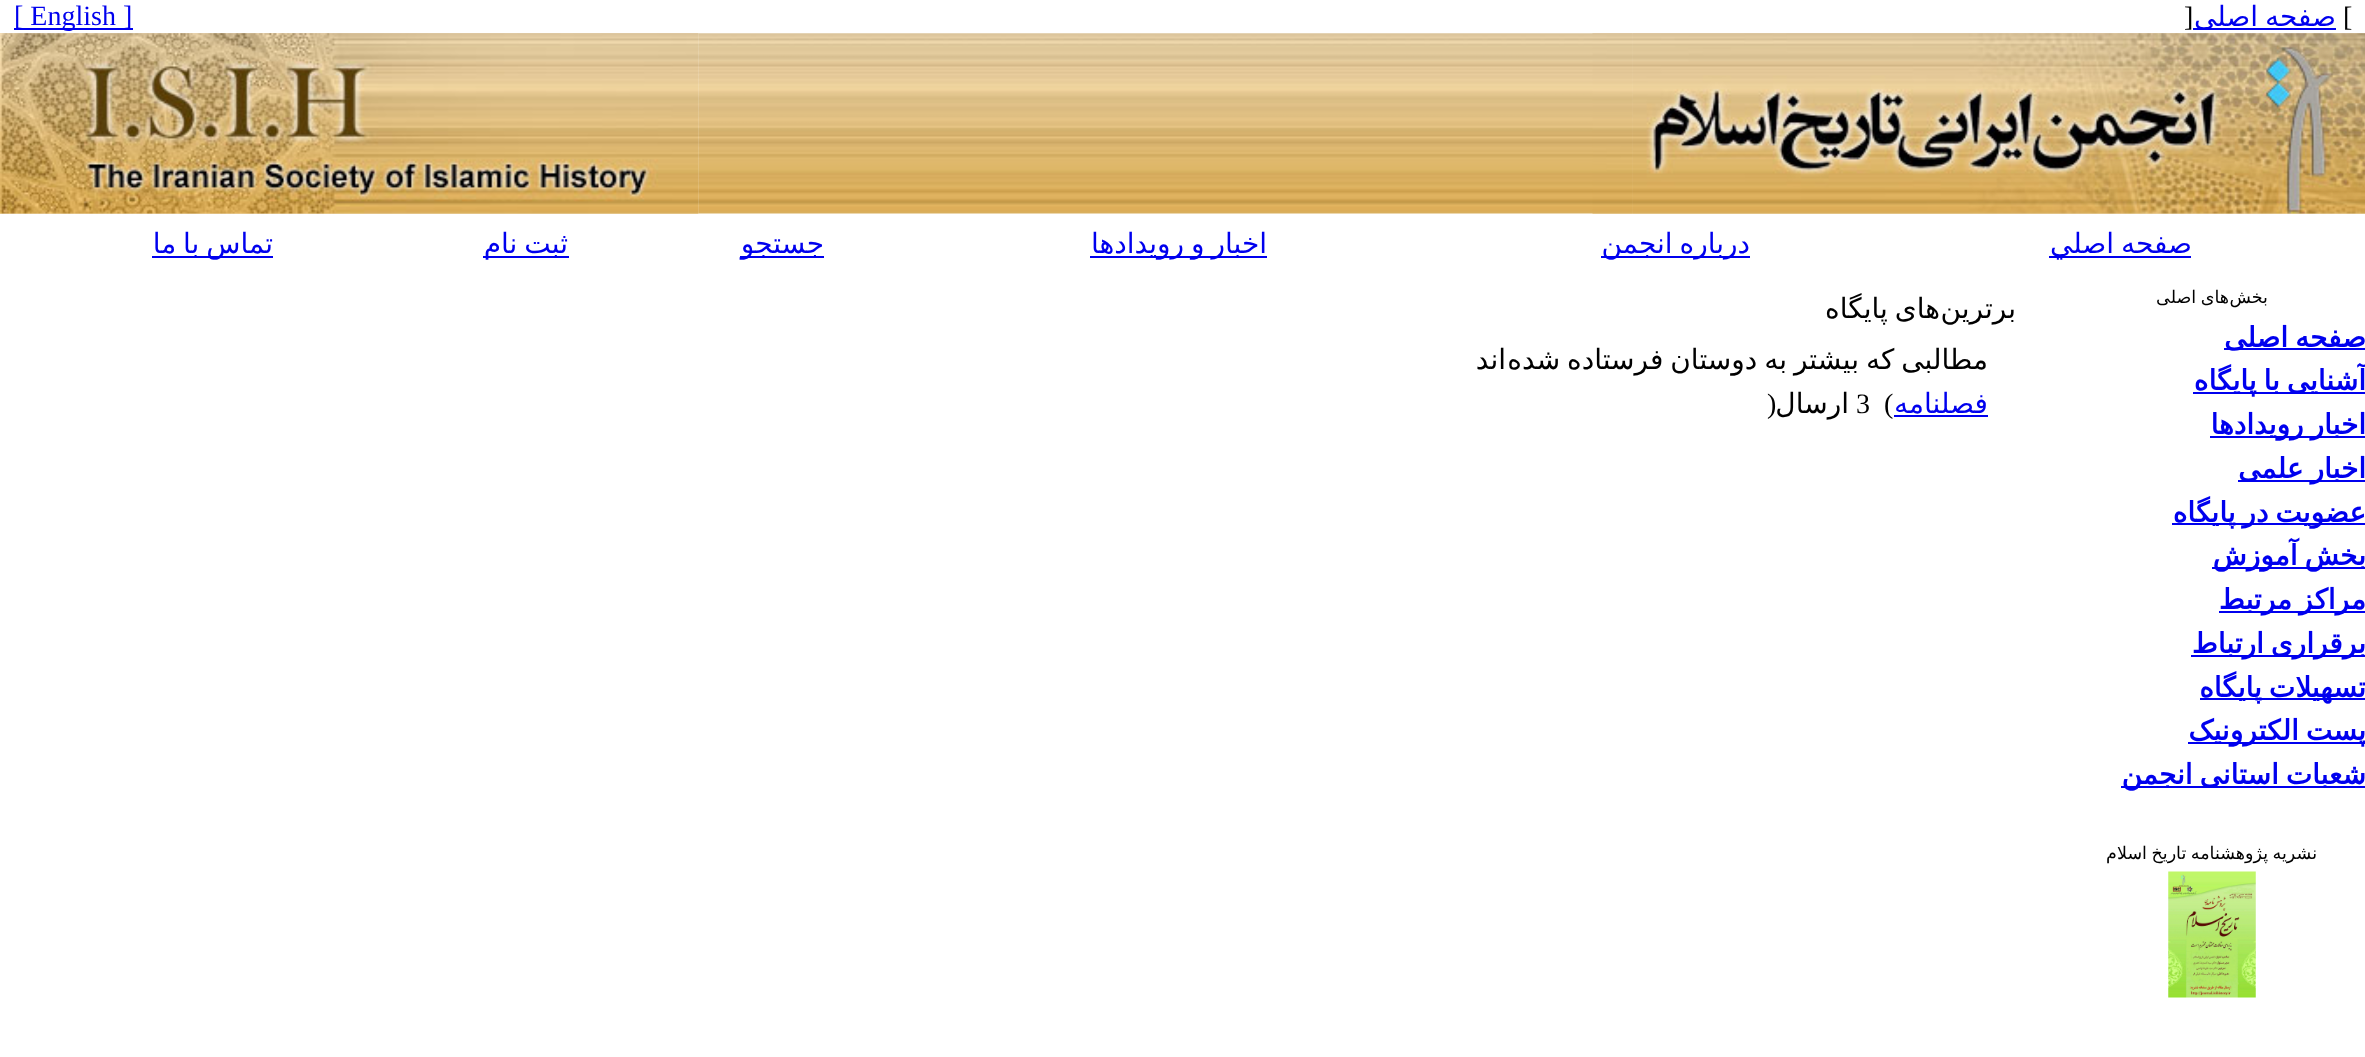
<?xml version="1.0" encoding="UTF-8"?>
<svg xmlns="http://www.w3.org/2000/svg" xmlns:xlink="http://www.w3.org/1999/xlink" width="2365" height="1057">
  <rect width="100%" height="100%" fill="#ffffff" />
  <rect x="2193" y="28" width="143" height="2" fill="#0000ee" />
  <rect x="14" y="28" width="119" height="2" fill="#0000ee" />
  <image x="1632" y="33" width="733" height="181" xlink:href="image1.png" />
  <image x="698" y="33" width="935" height="181" xlink:href="image3.png" />
  <image x="1632" y="33" width="733" height="181" xlink:href="image2.png" />
  <image x="1592" y="33" width="41" height="181" xlink:href="image4.png" />
  <image x="0" y="33" width="699" height="181" xlink:href="image5.png" />
  <image x="0" y="33" width="699" height="181" xlink:href="image6.png" />
  <rect x="2049" y="256" width="142" height="2" fill="#0000ee" />
  <rect x="1601" y="256" width="149" height="2" fill="#0000ee" />
  <rect x="1090" y="256" width="177" height="2" fill="#0000ee" />
  <rect x="740" y="256" width="84" height="2" fill="#0000ee" />
  <rect x="483" y="256" width="86" height="2" fill="#0000ee" />
  <rect x="152" y="256" width="121" height="2" fill="#0000ee" />
  <rect x="2224" y="348" width="141" height="2" fill="#0000ee" />
  <rect x="2193" y="392" width="172" height="2" fill="#0000ee" />
  <rect x="2210" y="436" width="155" height="2" fill="#0000ee" />
  <rect x="2238" y="480" width="127" height="2" fill="#0000ee" />
  <rect x="2172" y="523" width="193" height="2" fill="#0000ee" />
  <rect x="2212" y="567" width="153" height="2" fill="#0000ee" />
  <rect x="2219" y="611" width="146" height="2" fill="#0000ee" />
  <rect x="2191" y="655" width="174" height="2" fill="#0000ee" />
  <rect x="2200" y="698" width="165" height="2" fill="#0000ee" />
  <rect x="2188" y="742" width="177" height="2" fill="#0000ee" />
  <rect x="2121" y="786" width="244" height="2" fill="#0000ee" />
  <image x="2168" y="871" width="88" height="127" xlink:href="image7.png" />
  <rect x="1894" y="415" width="94" height="2" fill="#0000ee" />
  <text x="2343" y="26" style="font-family: Liberation Serif; font-size: 28px; fill: #000000">[</text>
  <text x="2336" y="26" word-spacing="-2" style="font-family: DejaVu Sans; font-size: 28px; direction: rtl; fill: #0000ee">صفحه اصلی</text>
  <text x="2184" y="26" style="font-family: Liberation Serif; font-size: 28px; fill: #000000">]</text>
  <text x="14" y="25" style="font-family: Liberation Serif; font-size: 28px; fill: #0000ee">[ English ]</text>
  <text x="2192" y="253" word-spacing="-2" style="font-family: DejaVu Sans; font-size: 28px; direction: rtl; fill: #0000ee">صفحه اصلي</text>
  <text x="1750" y="253" word-spacing="-2" style="font-family: DejaVu Sans; font-size: 28px; direction: rtl; fill: #0000ee">درباره انجمن</text>
  <text x="1267" y="253" word-spacing="-2" style="font-family: DejaVu Sans; font-size: 28px; direction: rtl; fill: #0000ee">اخبار و رویدادها</text>
  <text x="824" y="253" style="font-family: DejaVu Sans; font-size: 28px; direction: rtl; fill: #0000ee">جستجو</text>
  <text x="568" y="253" word-spacing="-2" style="font-family: DejaVu Sans; font-size: 28px; direction: rtl; fill: #0000ee">ثبت نام</text>
  <text x="273" y="253" word-spacing="-2" style="font-family: DejaVu Sans; font-size: 28px; direction: rtl; fill: #0000ee">تماس با ما</text>
  <text x="2268" y="303" style="font-family: DejaVu Sans; font-size: 17.5px; direction: rtl; fill: #000000">بخش</text>
  <text x="2229" y="303" word-spacing="-1" style="font-family: DejaVu Sans; font-size: 17.5px; direction: rtl; fill: #000000">های اصلی</text>
  <text x="2366" y="347" word-spacing="-2" style="font-family: DejaVu Sans; font-size: 28px; font-weight: bold; direction: rtl; fill: #0000ee">صفحه اصلی</text>
  <text x="2366" y="390" word-spacing="-2" style="font-family: DejaVu Sans; font-size: 28px; font-weight: bold; direction: rtl; fill: #0000ee">آشنایی با پایگاه</text>
  <text x="2366" y="434" word-spacing="-2" style="font-family: DejaVu Sans; font-size: 28px; font-weight: bold; direction: rtl; fill: #0000ee">اخبار رویدادها</text>
  <text x="2366" y="478" word-spacing="-2" style="font-family: DejaVu Sans; font-size: 28px; font-weight: bold; direction: rtl; fill: #0000ee">اخبار علمی</text>
  <text x="2366" y="522" word-spacing="-2" style="font-family: DejaVu Sans; font-size: 28px; font-weight: bold; direction: rtl; fill: #0000ee">عضویت در پایگاه</text>
  <text x="2366" y="565" word-spacing="-2" style="font-family: DejaVu Sans; font-size: 28px; font-weight: bold; direction: rtl; fill: #0000ee">بخش آموزش</text>
  <text x="2366" y="609" word-spacing="-2" style="font-family: DejaVu Sans; font-size: 28px; font-weight: bold; direction: rtl; fill: #0000ee">مراکز مرتبط</text>
  <text x="2366" y="653" word-spacing="-2" style="font-family: DejaVu Sans; font-size: 28px; font-weight: bold; direction: rtl; fill: #0000ee">برقراری ارتباط</text>
  <text x="2366" y="697" word-spacing="-2" style="font-family: DejaVu Sans; font-size: 28px; font-weight: bold; direction: rtl; fill: #0000ee">تسهیلات پایگاه</text>
  <text x="2366" y="740" word-spacing="-2" style="font-family: DejaVu Sans; font-size: 28px; font-weight: bold; direction: rtl; fill: #0000ee">پست الکترونیک</text>
  <text x="2366" y="784" word-spacing="-2" style="font-family: DejaVu Sans; font-size: 28px; font-weight: bold; direction: rtl; fill: #0000ee">شعبات استانی انجمن</text>
  <text x="2317" y="859" word-spacing="-1" style="font-family: DejaVu Sans; font-size: 17.5px; direction: rtl; fill: #000000">نشریه پژوهشنامه تاریخ اسلام</text>
  <text x="2016" y="318" style="font-family: DejaVu Sans; font-size: 28px; direction: rtl; fill: #000000">برترین</text>
  <text x="1940" y="318" word-spacing="-2" style="font-family: DejaVu Sans; font-size: 28px; direction: rtl; fill: #000000">های پایگاه</text>
  <text x="1988" y="369" word-spacing="-2" style="font-family: DejaVu Sans; font-size: 28px; direction: rtl; fill: #000000">مطالبی که بیشتر به دوستان فرستاده شده</text>
  <text x="1506" y="369" style="font-family: DejaVu Sans; font-size: 28px; direction: rtl; fill: #000000">اند</text>
  <text x="1988" y="413" style="font-family: DejaVu Sans; font-size: 28px; direction: rtl; fill: #0000ee">فصلنامه</text>
  <text x="1884" y="413" style="font-family: Liberation Serif; font-size: 28px; fill: #000000">(</text>
  <text x="1856" y="413" style="font-family: Liberation Serif; font-size: 28px; fill: #000000">3</text>
  <text x="1849" y="413" style="font-family: DejaVu Sans; font-size: 28px; direction: rtl; fill: #000000">ارسال</text>
  <text x="1767" y="413" style="font-family: Liberation Serif; font-size: 28px; fill: #000000">)</text>
</svg>
